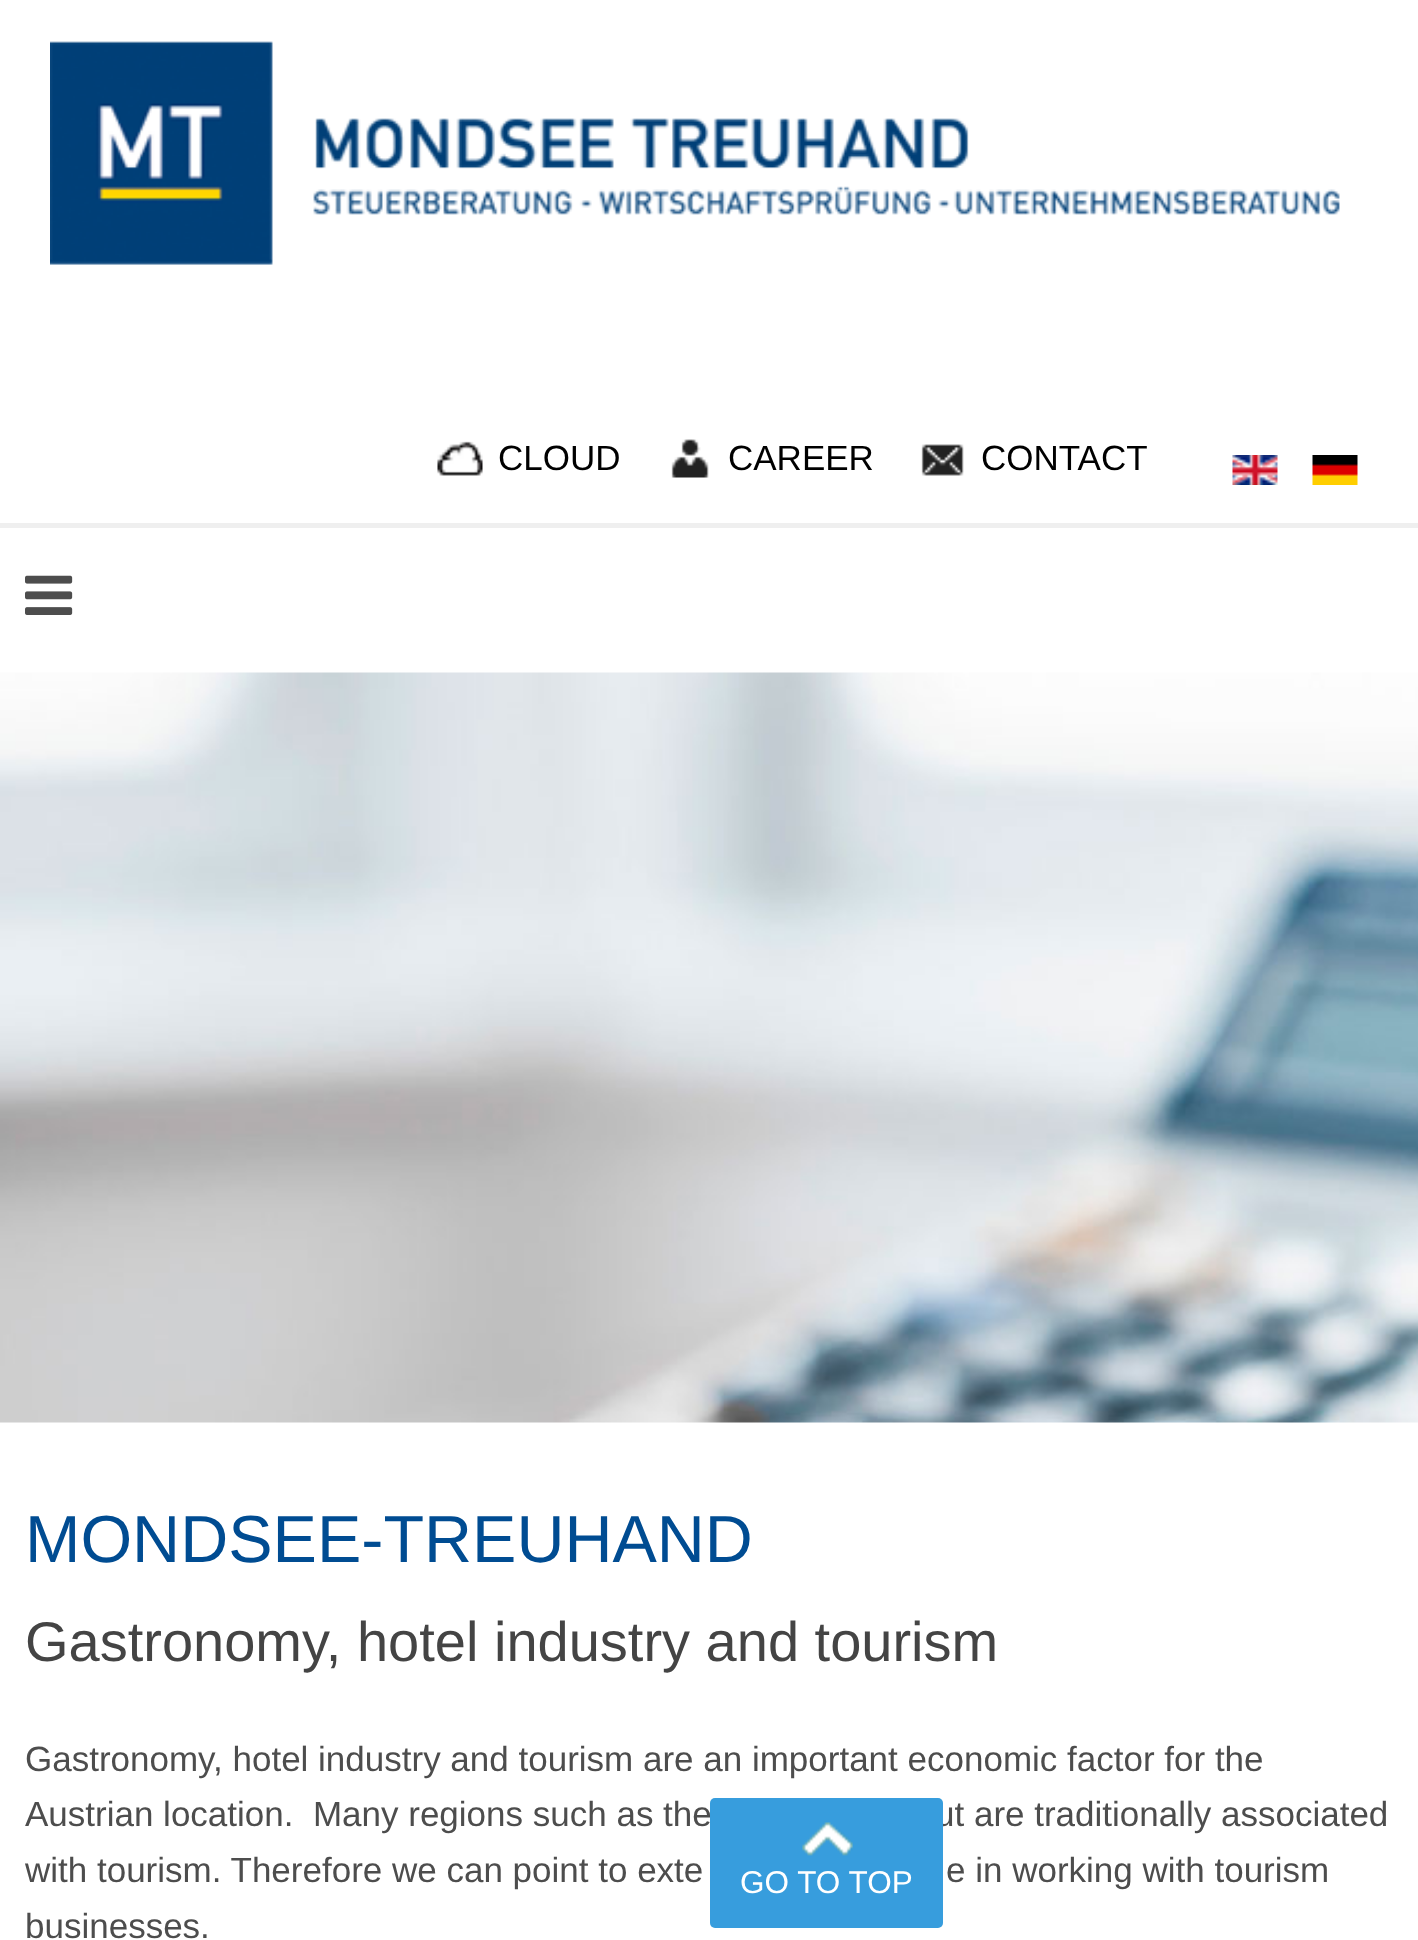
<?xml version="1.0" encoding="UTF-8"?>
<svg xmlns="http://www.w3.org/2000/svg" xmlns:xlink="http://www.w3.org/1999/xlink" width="1418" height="1940">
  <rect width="100%" height="100%" fill="#ffffff" />
  <image x="50" y="41" width="1290" height="224" xlink:href="image1.png" />
  <image x="437" y="441" width="46" height="35" xlink:href="image2.png" />
  <image x="671" y="439" width="38" height="39" xlink:href="image3.png" />
  <image x="921" y="444" width="43" height="32" xlink:href="image4.png" />
  <image x="1232" y="455" width="46" height="30" xlink:href="image5.png" />
  <image x="1312" y="455" width="46" height="30" xlink:href="image6.png" />
  <rect y="523" width="1418" height="5" fill="#efefef" />
  <image x="25" y="575" width="48" height="40" xlink:href="image7.png" />
  <image x="0" y="672" width="1418" height="751" xlink:href="image8.png" />
  <text x="498" y="470" style="font-family: Liberation Sans; font-size: 35px; fill: #000000">CLOUD</text>
  <text x="728" y="470" style="font-family: Liberation Sans; font-size: 35px; fill: #000000">CAREER</text>
  <text x="981" y="470" style="font-family: Liberation Sans; font-size: 35px; fill: #000000">CONTACT</text>
  <text x="25" y="1562" style="font-family: Liberation Sans; font-size: 66.5px; fill: #004c92">MONDSEE-TREUHAND</text>
  <text x="25" y="1661" style="font-family: Liberation Sans; font-size: 56px; fill: #444444">Gastronomy, hotel industry and tourism</text>
  <text x="25" y="1771" style="font-family: Liberation Sans; font-size: 35px; fill: #4d4d4d">Gastronomy, hotel industry and tourism are an important economic factor for the</text>
  <text x="25" y="1826" style="font-family: Liberation Sans; font-size: 35px; fill: #4d4d4d" xml:space="preserve">Austrian location.  Many regions such as the</text>
  <text x="935" y="1826" style="font-family: Liberation Sans; font-size: 35px; fill: #4d4d4d">ut are traditionally associated</text>
  <text x="25" y="1882" style="font-family: Liberation Sans; font-size: 35px; fill: #4d4d4d">with tourism. Therefore we can point to exte</text>
  <text x="946" y="1882" style="font-family: Liberation Sans; font-size: 35px; fill: #4d4d4d">e in working with tourism</text>
  <text x="25" y="1938" style="font-family: Liberation Sans; font-size: 35px; fill: #4d4d4d">businesses.</text>
  <rect x="710" y="1798" width="233" height="130" rx="5" fill="#379ddd" />
  <image x="802" y="1822" width="51" height="34" xlink:href="image9.png" />
  <text x="740" y="1893" style="font-family: Liberation Sans; font-size: 31.5px; fill: #ffffff">GO TO TOP</text>
</svg>
